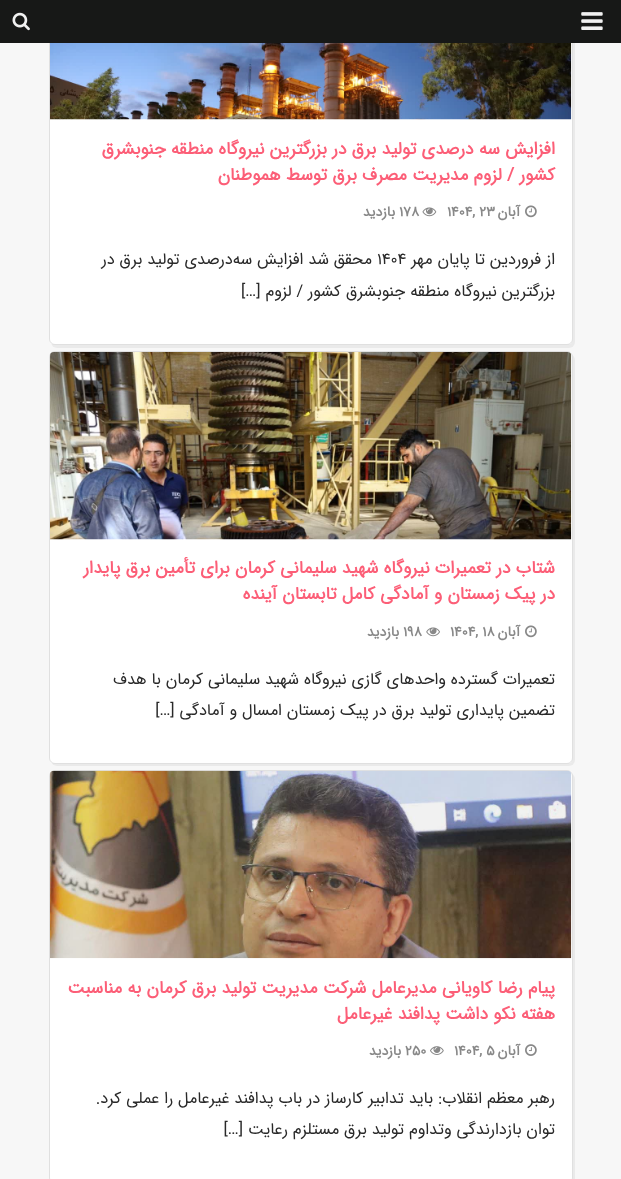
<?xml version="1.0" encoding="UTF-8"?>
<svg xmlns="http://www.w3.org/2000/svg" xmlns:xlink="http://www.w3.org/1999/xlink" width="621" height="1179">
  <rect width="100%" height="100%" fill="#f7f7f7" />
  <rect x="51" y="-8" width="524" height="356" rx="6" fill="#000000" fill-opacity="0.05" filter="blur(0.5px)" />
  <rect x="49" y="-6" width="524" height="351" rx="6" fill="#ffffff" />
  <rect x="49.5" y="-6.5" width="523" height="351" rx="5.5" fill="none" stroke="#000000" stroke-opacity="0.12" />
  <rect width="621" height="43" fill="#171817" />
  <image x="581" y="12" width="22" height="18" xlink:href="image1.png" />
  <image x="12" y="12" width="18" height="19" xlink:href="image2.png" />
  <image x="50" y="43" width="522" height="77" xlink:href="image3.png" />
  <image x="525" y="205" width="12" height="13" xlink:href="image4.png" />
  <image x="422" y="207" width="15" height="10" xlink:href="image5.png" />
  <rect x="51" y="354" width="524" height="412" rx="6" fill="#000000" fill-opacity="0.05" filter="blur(0.5px)" />
  <rect x="49" y="351" width="524" height="413" rx="6" fill="#ffffff" />
  <rect x="49.5" y="351.5" width="523" height="412" rx="5.5" fill="none" stroke="#000000" stroke-opacity="0.12" />
  <image x="50" y="352" width="522" height="188" xlink:href="image6.png" />
  <image x="525" y="625" width="12" height="13" xlink:href="image4.png" />
  <image x="426" y="627" width="14" height="10" xlink:href="image7.png" />
  <rect x="51" y="773" width="524" height="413" rx="6" fill="#000000" fill-opacity="0.05" filter="blur(0.5px)" />
  <rect x="49" y="770" width="524" height="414" rx="6" fill="#ffffff" />
  <rect x="49.5" y="770.5" width="523" height="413" rx="5.5" fill="none" stroke="#000000" stroke-opacity="0.12" />
  <image x="50" y="770" width="522" height="189" xlink:href="image8.png" />
  <image x="525" y="1044" width="12" height="12" xlink:href="image9.png" />
  <image x="430" y="1046" width="14" height="9" xlink:href="image10.png" />
  <text x="555" y="154" style="font-family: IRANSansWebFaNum; font-size: 17.5px; font-weight: bold; direction: rtl; fill: #fc5e77">افزایش سه‌ درصدی تولید برق در بزرگترین نیروگاه منطقه جنوبشرق</text>
  <text x="555" y="180" style="font-family: IRANSansWebFaNum; font-size: 17.5px; font-weight: bold; direction: rtl; fill: #fc5e77">کشور / لزوم مدیریت مصرف برق توسط هموطنان</text>
  <text x="520" y="216" style="font-family: IRANSansWebFaNum; font-size: 14px; font-weight: bold; direction: rtl; fill: #888888">آبان</text>
  <text x="447" y="216" style="font-family: IRANSansWebFaNum; font-size: 14px; font-weight: bold; fill: #888888">۱۴۰۴, ۲۳</text>
  <text x="399" y="216" style="font-family: IRANSansWebFaNum; font-size: 14px; font-weight: bold; fill: #888888">178</text>
  <text x="395" y="216" style="font-family: IRANSansWebFaNum; font-size: 14px; font-weight: bold; direction: rtl; fill: #888888">بازدید</text>
  <text x="555" y="264" style="font-family: IRANSansWebFaNum; font-size: 16.25px; direction: rtl; fill: #292929">از فروردین تا پایان مهر</text>
  <text x="377" y="264" style="font-family: IRANSansWebFaNum; font-size: 16.25px; fill: #292929">۱۴۰۴</text>
  <text x="372" y="264" style="font-family: IRANSansWebFaNum; font-size: 16.25px; direction: rtl; fill: #292929">محقق شد افزایش سه‌درصدی تولید برق در</text>
  <text x="555" y="296" style="font-family: IRANSansWebFaNum; font-size: 16.25px; direction: rtl; fill: #292929">بزرگترین نیروگاه منطقه جنوبشرق کشور / لزوم […]</text>
  <text x="555" y="573" style="font-family: IRANSansWebFaNum; font-size: 17.5px; font-weight: bold; direction: rtl; fill: #fc5e77">شتاب در تعمیرات نیروگاه شهید سلیمانی کرمان برای تأمین برق پایدار</text>
  <text x="555" y="599" style="font-family: IRANSansWebFaNum; font-size: 17.5px; font-weight: bold; direction: rtl; fill: #fc5e77">در پیک زمستان و آمادگی کامل تابستان آینده</text>
  <text x="520" y="636" style="font-family: IRANSansWebFaNum; font-size: 14px; font-weight: bold; direction: rtl; fill: #888888">آبان</text>
  <text x="450" y="636" style="font-family: IRANSansWebFaNum; font-size: 14px; font-weight: bold; fill: #888888">۱۴۰۴, ۱۸</text>
  <text x="403" y="636" style="font-family: IRANSansWebFaNum; font-size: 14px; font-weight: bold; fill: #888888">198</text>
  <text x="399" y="636" style="font-family: IRANSansWebFaNum; font-size: 14px; font-weight: bold; direction: rtl; fill: #888888">بازدید</text>
  <text x="555" y="684" style="font-family: IRANSansWebFaNum; font-size: 16.25px; direction: rtl; fill: #292929">تعمیرات گسترده واحدهای گازی نیروگاه شهید سلیمانی کرمان با هدف</text>
  <text x="555" y="715" style="font-family: IRANSansWebFaNum; font-size: 16.25px; direction: rtl; fill: #292929">تضمین پایداری تولید برق در پیک زمستان امسال و آمادگی […]</text>
  <text x="555" y="993" style="font-family: IRANSansWebFaNum; font-size: 17.5px; font-weight: bold; direction: rtl; fill: #fc5e77">پیام رضا کاویانی مدیرعامل شرکت مدیریت تولید برق کرمان به مناسبت</text>
  <text x="555" y="1019" style="font-family: IRANSansWebFaNum; font-size: 17.5px; font-weight: bold; direction: rtl; fill: #fc5e77">هفته نکو داشت پدافند غیرعامل</text>
  <text x="520" y="1055" style="font-family: IRANSansWebFaNum; font-size: 14px; font-weight: bold; direction: rtl; fill: #888888">آبان</text>
  <text x="454" y="1055" style="font-family: IRANSansWebFaNum; font-size: 14px; font-weight: bold; fill: #888888">۱۴۰۴, ۵</text>
  <text x="405" y="1055" style="font-family: IRANSansWebFaNum; font-size: 14px; font-weight: bold; fill: #888888">250</text>
  <text x="401" y="1055" style="font-family: IRANSansWebFaNum; font-size: 14px; font-weight: bold; direction: rtl; fill: #888888">بازدید</text>
  <text x="555" y="1103" style="font-family: IRANSansWebFaNum; font-size: 16.25px; direction: rtl; fill: #292929">رهبر معظم انقلاب: باید تدابیر کارساز در باب پدافند غیرعامل را عملی کرد.</text>
  <text x="555" y="1134" style="font-family: IRANSansWebFaNum; font-size: 16.25px; direction: rtl; fill: #292929">توان بازدارندگی وتداوم تولید برق مستلزم رعایت […]</text>
</svg>
